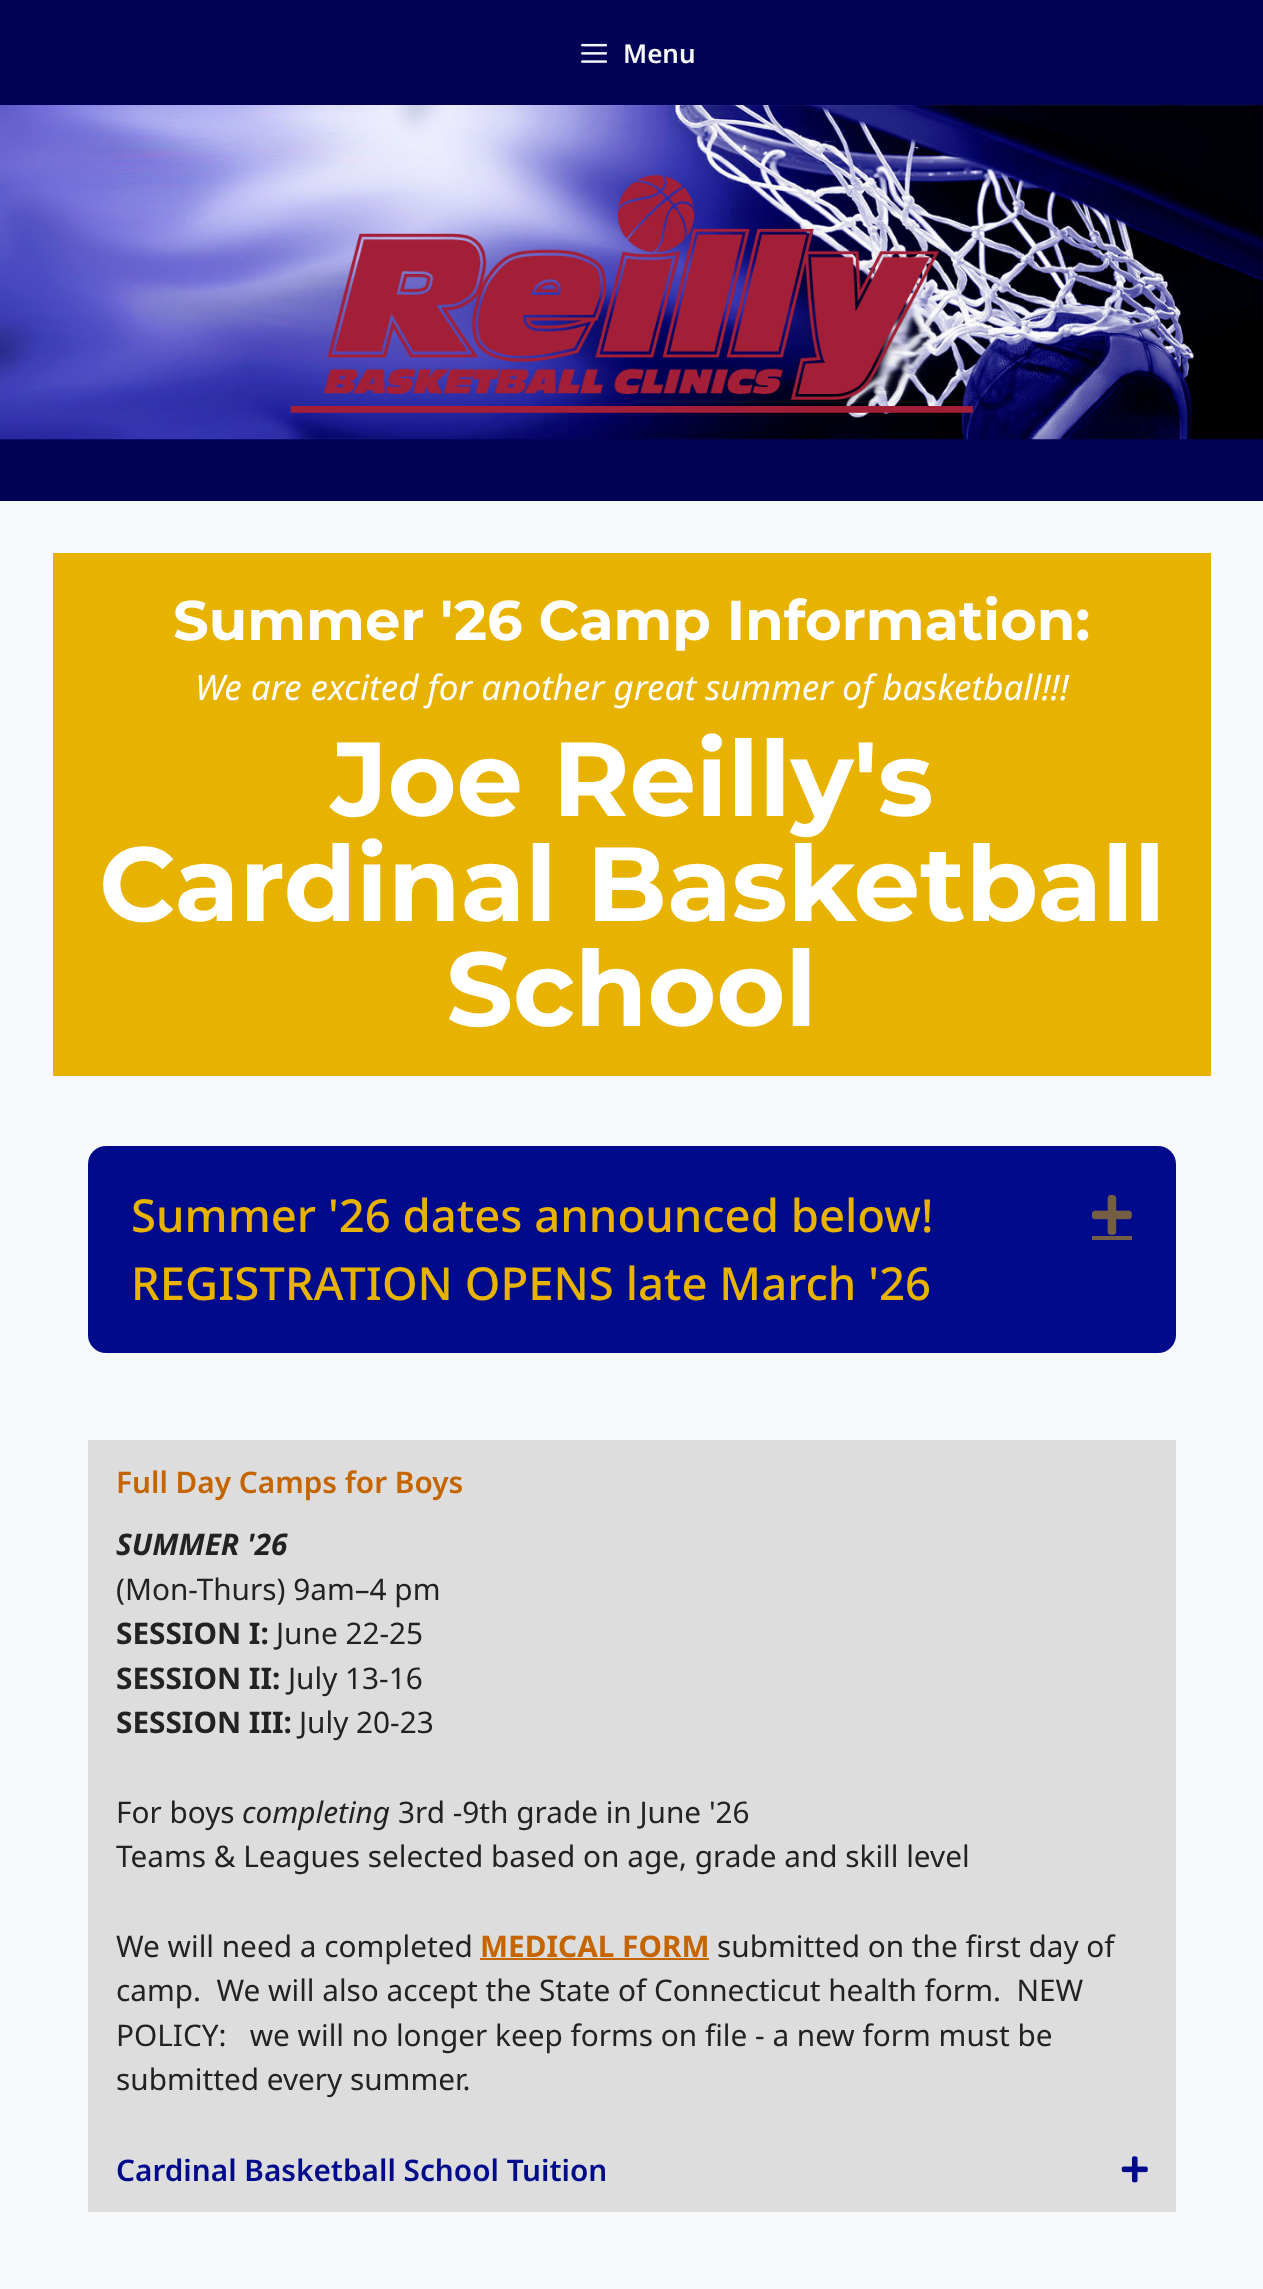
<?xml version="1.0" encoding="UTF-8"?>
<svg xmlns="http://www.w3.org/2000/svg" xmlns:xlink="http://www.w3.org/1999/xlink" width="1263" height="2289">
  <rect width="100%" height="100%" fill="#010255" />
  <image x="581" y="43" width="26" height="20" xlink:href="image1.png" />
  <image x="0" y="105" width="1263" height="335" xlink:href="image2.png" />
  <image x="290" y="175" width="683" height="238" xlink:href="image3.png" />
  <rect y="501" width="1263" height="1788" fill="#f7f8f9" />
  <rect x="53" y="553" width="1158" height="523" fill="#e8b200" />
  <rect x="88" y="1146" width="1088" height="207" rx="18" fill="#000b8c" />
  <image x="1092" y="1195" width="40" height="40" xlink:href="image4.png" />
  <rect x="1092" y="1236" width="40" height="4" fill="#745f46" />
  <rect x="88" y="1440" width="1088" height="772" fill="#dddddd" />
  <rect x="480" y="1958" width="229" height="2" fill="#c46500" />
  <image x="1121" y="2156" width="27" height="27" xlink:href="image5.png" />
  <text x="623" y="63" style="font-family: Noto Sans; font-size: 26px; font-weight: 600; fill: #f7f8f9">Menu</text>
  <text x="173" y="640" style="font-family: Montserrat; font-size: 56px; font-weight: bold; fill: #ffffff">Summer '26 Camp Information:</text>
  <text x="195" y="700" style="font-family: Noto Sans; font-size: 35px; font-style: italic; fill: #ffffff">We are excited for another great summer of basketball!!!</text>
  <text x="331" y="816" style="font-family: Montserrat; font-size: 105px; font-weight: bold; fill: #ffffff">Joe Reilly's</text>
  <text x="99" y="921" style="font-family: Montserrat; font-size: 105px; font-weight: bold; fill: #ffffff">Cardinal Basketball</text>
  <text x="446" y="1026" style="font-family: Montserrat; font-size: 105px; font-weight: bold; fill: #ffffff">School</text>
  <text x="131" y="1232" style="font-family: Noto Sans; font-size: 45.5px; font-weight: 500; fill: #e8b200">Summer '26 dates announced below!</text>
  <text x="131" y="1300" style="font-family: Noto Sans; font-size: 45.5px; font-weight: 500; fill: #e8b200">REGISTRATION OPENS late March '26</text>
  <text x="116" y="1493" style="font-family: Noto Sans; font-size: 29.75px; font-weight: 600; fill: #c46500">Full Day Camps for Boys</text>
  <text x="116" y="1555" style="font-family: Noto Sans; font-size: 29.75px; font-weight: bold; font-style: italic; fill: #222222">SUMMER '26</text>
  <text x="116" y="1600" style="font-family: Noto Sans; font-size: 29.75px; fill: #222222">(Mon-Thurs) 9am–4 pm</text>
  <text x="116" y="1644" style="font-family: Noto Sans; font-size: 29.75px; font-weight: bold; fill: #222222">SESSION I:</text>
  <text x="276" y="1644" style="font-family: Noto Sans; font-size: 29.75px; fill: #222222">June 22-25</text>
  <text x="116" y="1689" style="font-family: Noto Sans; font-size: 29.75px; font-weight: bold; fill: #222222">SESSION II:</text>
  <text x="288" y="1689" style="font-family: Noto Sans; font-size: 29.75px; fill: #222222">July 13-16</text>
  <text x="116" y="1733" style="font-family: Noto Sans; font-size: 29.75px; font-weight: bold; fill: #222222">SESSION III:</text>
  <text x="299" y="1733" style="font-family: Noto Sans; font-size: 29.75px; fill: #222222">July 20-23</text>
  <text x="116" y="1823" style="font-family: Noto Sans; font-size: 29.75px; fill: #222222">For boys</text>
  <text x="242" y="1823" style="font-family: Noto Sans; font-size: 29.75px; font-style: italic; fill: #222222">completing</text>
  <text x="398" y="1823" style="font-family: Noto Sans; font-size: 29.75px; fill: #222222">3rd -9th grade in June '26</text>
  <text x="116" y="1867" style="font-family: Noto Sans; font-size: 29.75px; fill: #222222">Teams &amp; Leagues selected based on age, grade and skill level</text>
  <text x="116" y="1957" style="font-family: Noto Sans; font-size: 29.75px; fill: #222222">We will need a completed</text>
  <text x="480" y="1957" style="font-family: Noto Sans; font-size: 29.75px; font-weight: bold; fill: #c46500">MEDICAL FORM</text>
  <text x="717" y="1957" style="font-family: Noto Sans; font-size: 29.75px; fill: #222222">submitted on the first day of</text>
  <text x="116" y="2001" style="font-family: Noto Sans; font-size: 29.75px; fill: #222222" xml:space="preserve">camp.  We will also accept the State of Connecticut health form.  NEW</text>
  <text x="116" y="2046" style="font-family: Noto Sans; font-size: 29.75px; fill: #222222" xml:space="preserve">POLICY:   we will no longer keep forms on file - a new form must be</text>
  <text x="116" y="2090" style="font-family: Noto Sans; font-size: 29.75px; fill: #222222">submitted every summer.</text>
  <text x="116" y="2181" style="font-family: Noto Sans; font-size: 29.75px; font-weight: 600; fill: #000b8c">Cardinal Basketball School Tuition</text>
</svg>
